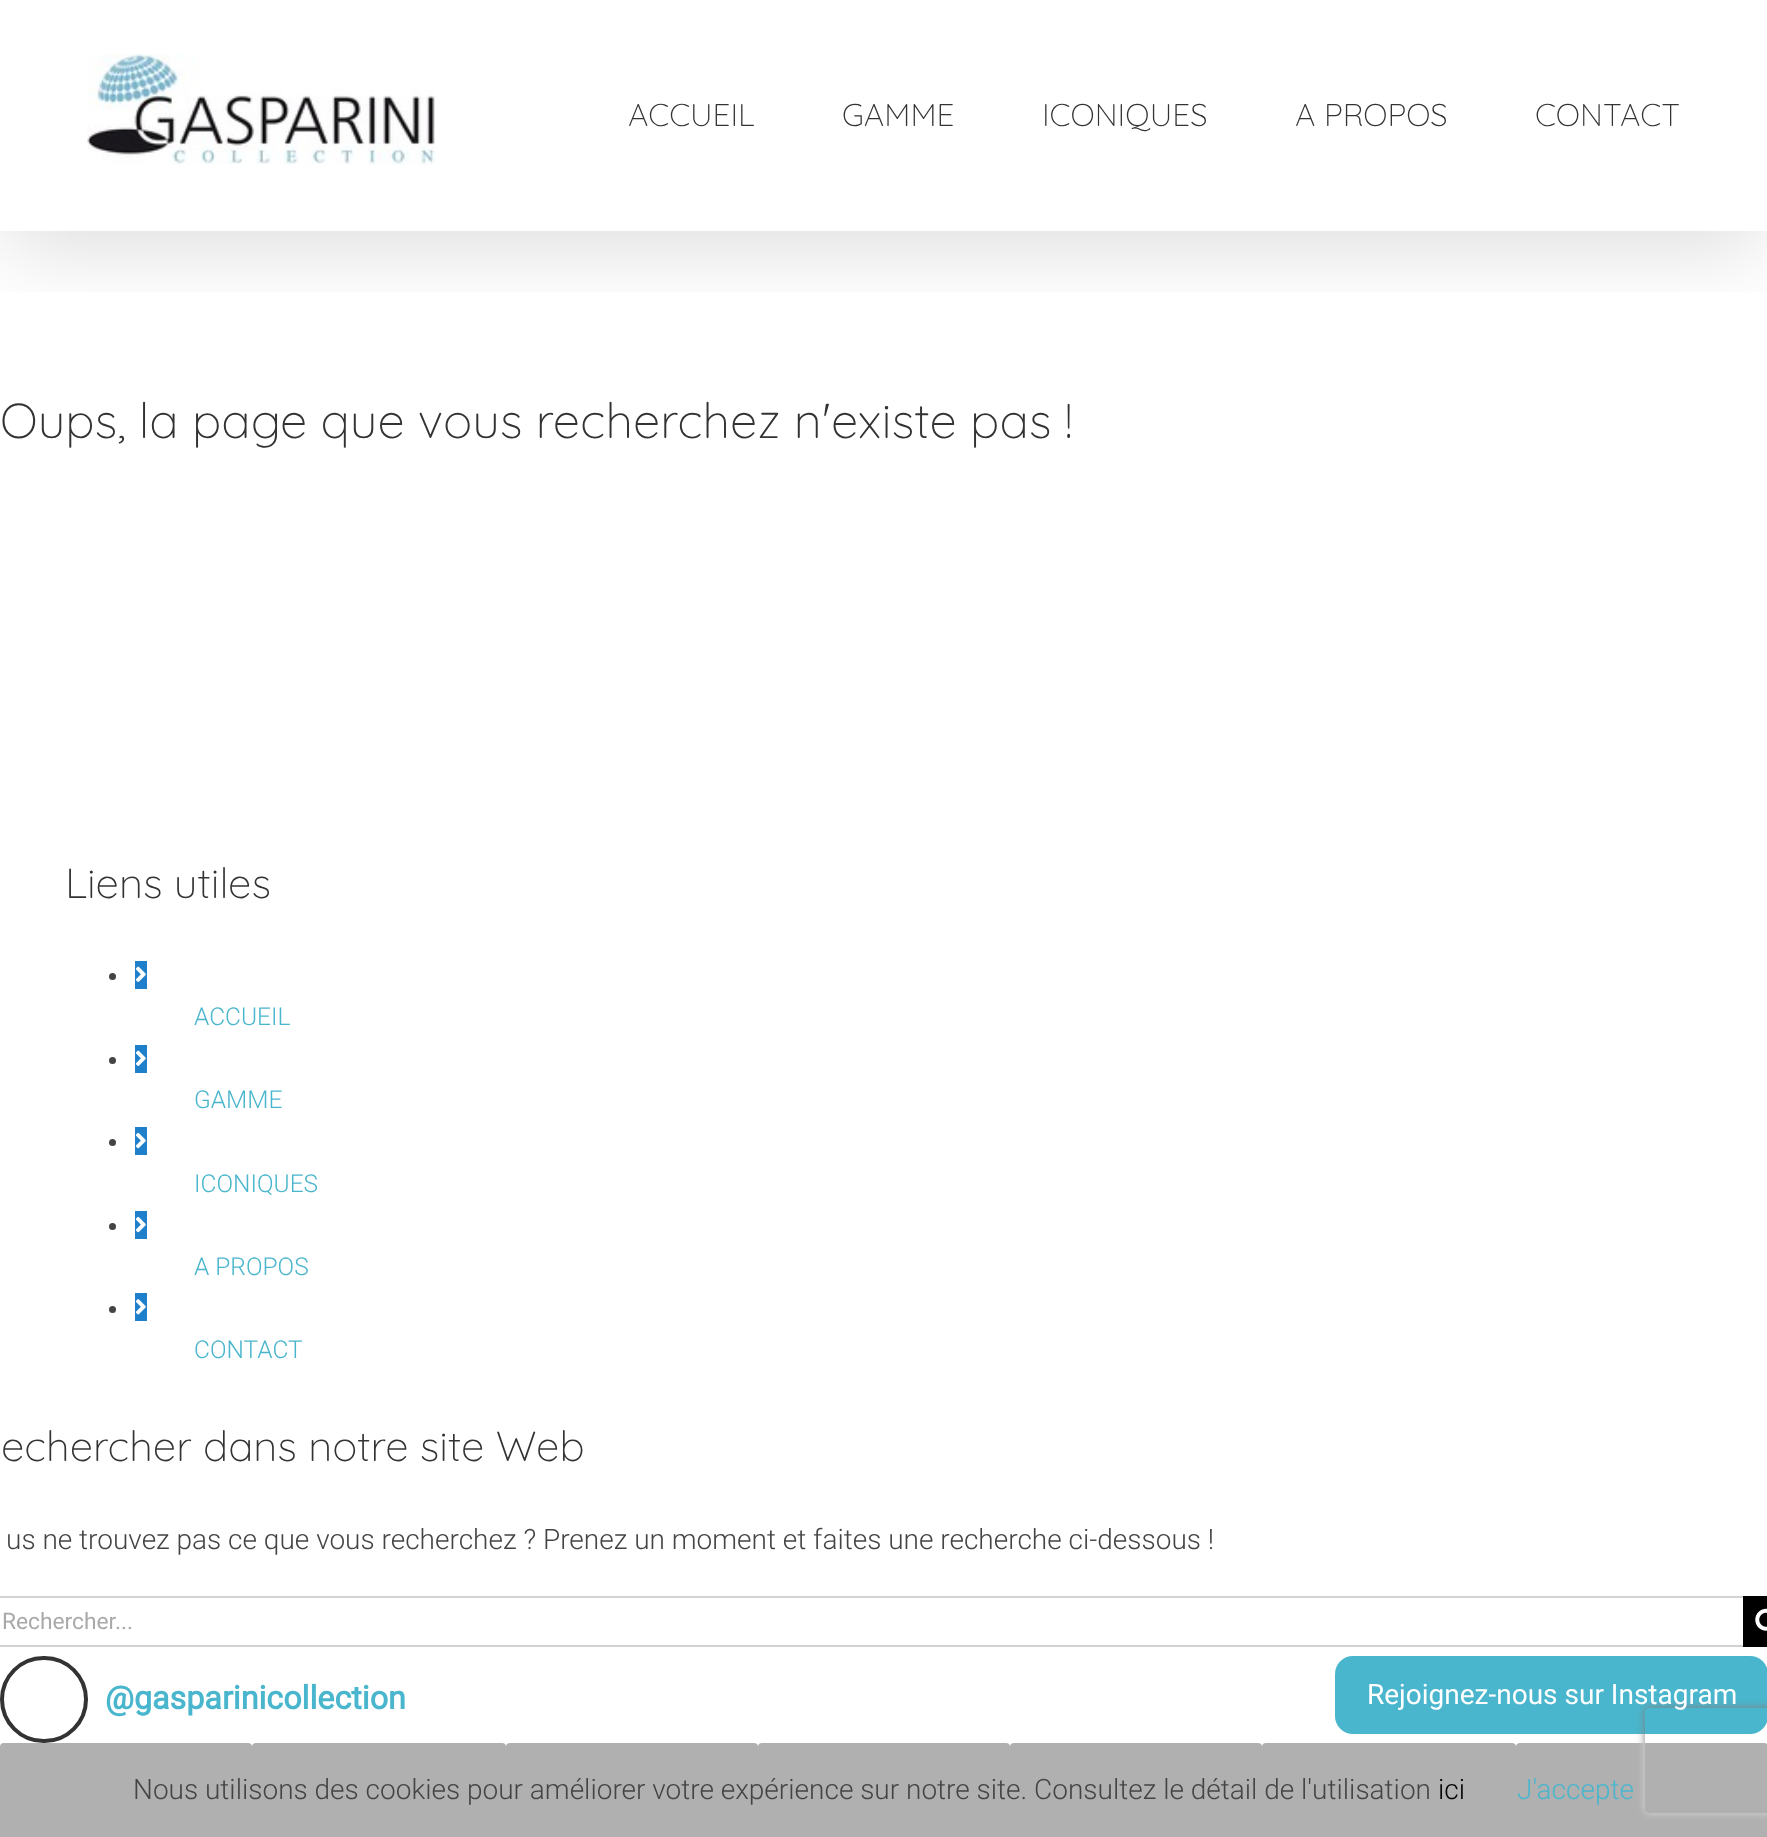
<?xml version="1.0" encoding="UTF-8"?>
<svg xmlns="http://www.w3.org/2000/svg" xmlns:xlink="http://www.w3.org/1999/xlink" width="1767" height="1837">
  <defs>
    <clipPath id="clip1"><rect x="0" y="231" width="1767" height="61" /></clipPath>
    <clipPath id="clip2"><path d="M 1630 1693 h 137 v 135 h -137 z m 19 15 h 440 c 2 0 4 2 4 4 v 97 c 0 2 -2 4 -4 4 h -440 c -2 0 -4 -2 -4 -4 v -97 c 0 -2 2 -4 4 -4 z" clip-rule="evenodd" /></clipPath>
  </defs>
  <rect width="100%" height="100%" fill="#ffffff" />
  <g clip-path="url(#clip1)">
    <rect x="4" y="21" width="1760" height="224" fill="#000000" fill-opacity="0.14" filter="blur(44px)" />
  </g>
  <image x="87" y="54" width="349" height="111" xlink:href="image1.png" />
  <circle cx="112.5" cy="976.5" r="3.5" fill="#444444" />
  <rect x="135" y="961" width="12" height="28" fill="#1e7fcb" />
  <image x="136" y="966" width="10" height="16" xlink:href="image2.png" />
  <circle cx="112.5" cy="1060.5" r="3.5" fill="#444444" />
  <rect x="135" y="1045" width="12" height="28" fill="#1e7fcb" />
  <image x="136" y="1050" width="10" height="16" xlink:href="image2.png" />
  <circle cx="112.5" cy="1142.5" r="3.5" fill="#444444" />
  <rect x="135" y="1127" width="12" height="28" fill="#1e7fcb" />
  <image x="136" y="1132" width="10" height="17" xlink:href="image3.png" />
  <circle cx="112.5" cy="1226.5" r="3.5" fill="#444444" />
  <rect x="135" y="1211" width="12" height="28" fill="#1e7fcb" />
  <image x="136" y="1216" width="10" height="17" xlink:href="image3.png" />
  <circle cx="112.5" cy="1309.5" r="3.5" fill="#444444" />
  <rect x="135" y="1293" width="12" height="28" fill="#1e7fcb" />
  <image x="136" y="1299" width="10" height="16" xlink:href="image4.png" />
  <rect y="1596" width="1743" height="2" fill="#d2d2d2" />
  <rect y="1645" width="1743" height="2" fill="#d2d2d2" />
  <rect x="1743" y="1596" width="24" height="51" fill="#000000" />
  <image x="1755" y="1608" width="12" height="23" xlink:href="image5.png" />
  <rect x="2" y="1658" width="84" height="83" rx="41.5" fill="none" stroke="#333333" stroke-width="4" />
  <rect x="1335" y="1656" width="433" height="78" rx="18" fill="#4ab6cd" />
  <rect y="1743" width="252" height="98" rx="4" fill="#000000" />
  <rect x="252" y="1743" width="254" height="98" rx="4" fill="#000000" />
  <rect x="506" y="1743" width="252" height="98" rx="4" fill="#000000" />
  <rect x="758" y="1743" width="252" height="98" rx="4" fill="#000000" />
  <rect x="1010" y="1743" width="252" height="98" rx="4" fill="#000000" />
  <rect x="1262" y="1743" width="254" height="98" rx="4" fill="#000000" />
  <rect x="1516" y="1743" width="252" height="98" rx="4" fill="#000000" />
  <g clip-path="url(#clip2)">
    <rect x="1645" y="1708" width="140" height="105" rx="4" fill="#808080" filter="blur(4.5px)" />
  </g>
  <rect y="1743" width="1767" height="94" fill="#ffffff" fill-opacity="0.69" />
  <text x="628" y="126" style="font-family: Quicksand; font-size: 31.5px; font-weight: 300; fill: #333333">ACCUEIL</text>
  <text x="842" y="126" style="font-family: Quicksand; font-size: 31.5px; font-weight: 300; fill: #333333">GAMME</text>
  <text x="1042" y="126" style="font-family: Quicksand; font-size: 31.5px; font-weight: 300; fill: #333333">ICONIQUES</text>
  <text x="1295" y="126" style="font-family: Quicksand; font-size: 31.5px; font-weight: 300; fill: #333333">A PROPOS</text>
  <text x="1535" y="126" style="font-family: Quicksand; font-size: 31.5px; font-weight: 300; fill: #333333">CONTACT</text>
  <text x="0" y="438" style="font-family: Quicksand; font-size: 49px; font-weight: 300; fill: #333333">Oups, la page que vous recherchez n'existe pas !</text>
  <text x="65" y="898" style="font-family: Quicksand; font-size: 42px; font-weight: 300; fill: #333333">Liens utiles</text>
  <text x="194" y="1025" style="font-family: Roboto; font-size: 24.5px; font-weight: 300; fill: #4ab6cd">ACCUEIL</text>
  <text x="194" y="1108" style="font-family: Roboto; font-size: 24.5px; font-weight: 300; fill: #4ab6cd">GAMME</text>
  <text x="194" y="1192" style="font-family: Roboto; font-size: 24.5px; font-weight: 300; fill: #4ab6cd">ICONIQUES</text>
  <text x="194" y="1275" style="font-family: Roboto; font-size: 24.5px; font-weight: 300; fill: #4ab6cd">A PROPOS</text>
  <text x="194" y="1358" style="font-family: Roboto; font-size: 24.5px; font-weight: 300; fill: #4ab6cd">CONTACT</text>
  <text x="1" y="1461" style="font-family: Quicksand; font-size: 42px; font-weight: 300; fill: #333333">echercher dans notre site Web</text>
  <text x="6" y="1549" style="font-family: Roboto; font-size: 28px; font-weight: 300; fill: #444444">us ne trouvez pas ce que vous recherchez ? Prenez un moment et faites une recherche ci-dessous !</text>
  <text x="2" y="1629" style="font-family: Roboto; font-size: 22.75px; fill: #aaa9a9">Rechercher...</text>
  <text x="105" y="1709" style="font-family: Roboto; font-size: 32.25px; font-weight: bold; fill: #4ab6cd">@gasparinicollection</text>
  <text x="1367" y="1704" style="font-family: Roboto; font-size: 28px; fill: #ffffff">Rejoignez-nous sur Instagram</text>
  <text x="133" y="1799" style="font-family: Roboto; font-size: 28px; font-weight: 300; fill: #444444">Nous utilisons des cookies pour améliorer votre expérience sur notre site. Consultez le détail de l'utilisation</text>
  <text x="1438" y="1799" style="font-family: Roboto; font-size: 28px; font-weight: 300; fill: #000000">ici</text>
  <text x="1517" y="1799" style="font-family: Roboto; font-size: 28px; font-weight: 300; fill: #4ab6cd">J'accepte</text>
</svg>
